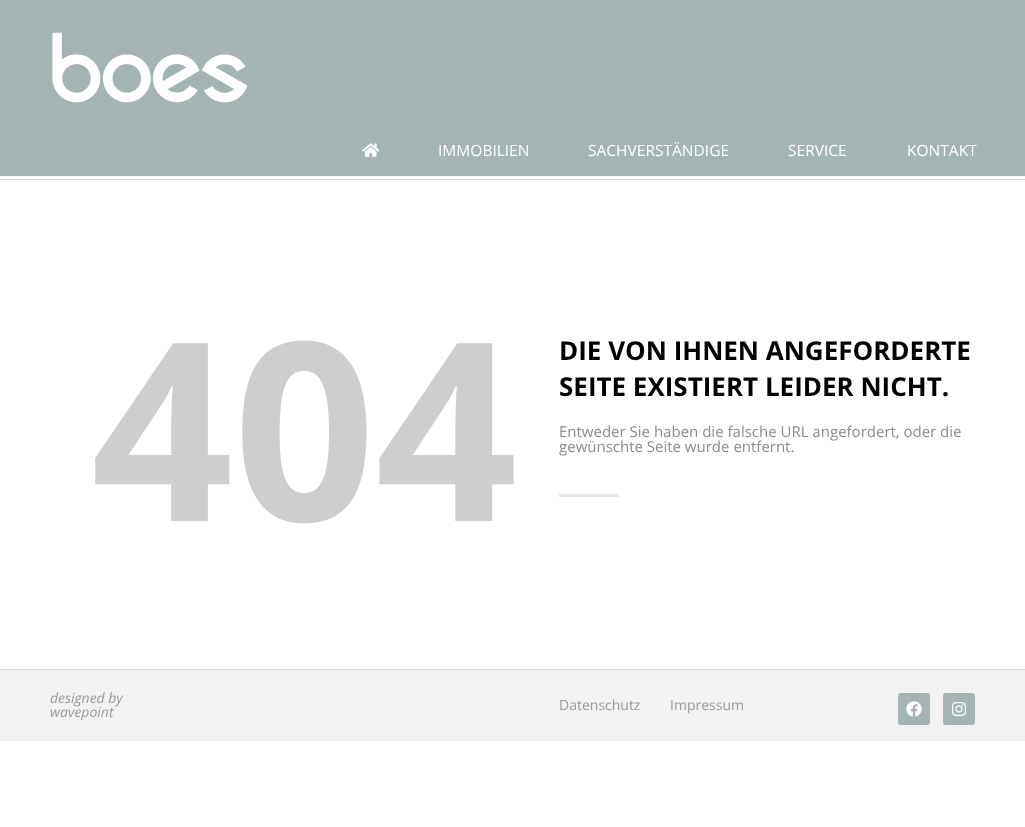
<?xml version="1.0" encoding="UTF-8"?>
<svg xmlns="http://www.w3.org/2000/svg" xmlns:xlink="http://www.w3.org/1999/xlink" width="1025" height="827">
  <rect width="100%" height="100%" fill="#ffffff" />
  <rect width="1025" height="176" fill="#a4b4b4" />
  <image x="52" y="32" width="196" height="71" xlink:href="image1.png" />
  <image x="362" y="143" width="18" height="14" xlink:href="image2.png" />
  <rect y="670" width="1025" height="71" fill="#f2f2f2" />
  <rect x="898" y="693" width="32" height="32" rx="3" fill="#a4b4b4" />
  <image x="906" y="701" width="16" height="16" xlink:href="image3.png" />
  <rect x="943" y="693" width="32" height="32" rx="3" fill="#a4b4b4" />
  <image x="952" y="702" width="14" height="14" xlink:href="image4.png" />
  <rect y="179" width="1025" height="1" fill="#d8dacd" />
  <rect y="669" width="1025" height="1" fill="#d8dacd" />
  <rect x="559" y="494" width="60" height="3" fill="#e8e8e8" />
  <text x="438" y="156" style="font-family: Open Sans; font-size: 15.5px; fill: #ffffff">IMMOBILIEN</text>
  <text x="588" y="156" style="font-family: Open Sans; font-size: 15.5px; fill: #ffffff">SACHVERSTÄNDIGE</text>
  <text x="788" y="156" style="font-family: Open Sans; font-size: 15.5px; fill: #ffffff">SERVICE</text>
  <text x="907" y="156" style="font-family: Open Sans; font-size: 15.5px; fill: #ffffff">KONTAKT</text>
  <text x="50" y="703" style="font-family: Open Sans; font-size: 14px; font-style: italic; fill: #999999">designed by</text>
  <text x="50" y="717" style="font-family: Open Sans; font-size: 14px; font-style: italic; fill: #999999">wavepoint</text>
  <text x="559" y="710" style="font-family: Open Sans; font-size: 14px; fill: #999999">Datenschutz</text>
  <text x="670" y="710" style="font-family: Open Sans; font-size: 14px; fill: #999999">Impressum</text>
  <text x="91" y="521" style="font-family: Open Sans; font-size: 249px; font-weight: bold; fill: #cecece">404</text>
  <text x="559" y="360" style="font-family: Open Sans; font-size: 26px; font-weight: bold; fill: #000000">DIE VON IHNEN ANGEFORDERTE</text>
  <text x="559" y="396" style="font-family: Open Sans; font-size: 26px; font-weight: bold; fill: #000000">SEITE EXISTIERT LEIDER NICHT.</text>
  <text x="559" y="437" style="font-family: Open Sans; font-size: 15px; fill: #8c8c8c">Entweder Sie haben die falsche URL angefordert, oder die</text>
  <text x="559" y="452" style="font-family: Open Sans; font-size: 15px; fill: #8c8c8c">gewünschte Seite wurde entfernt.</text>
</svg>
